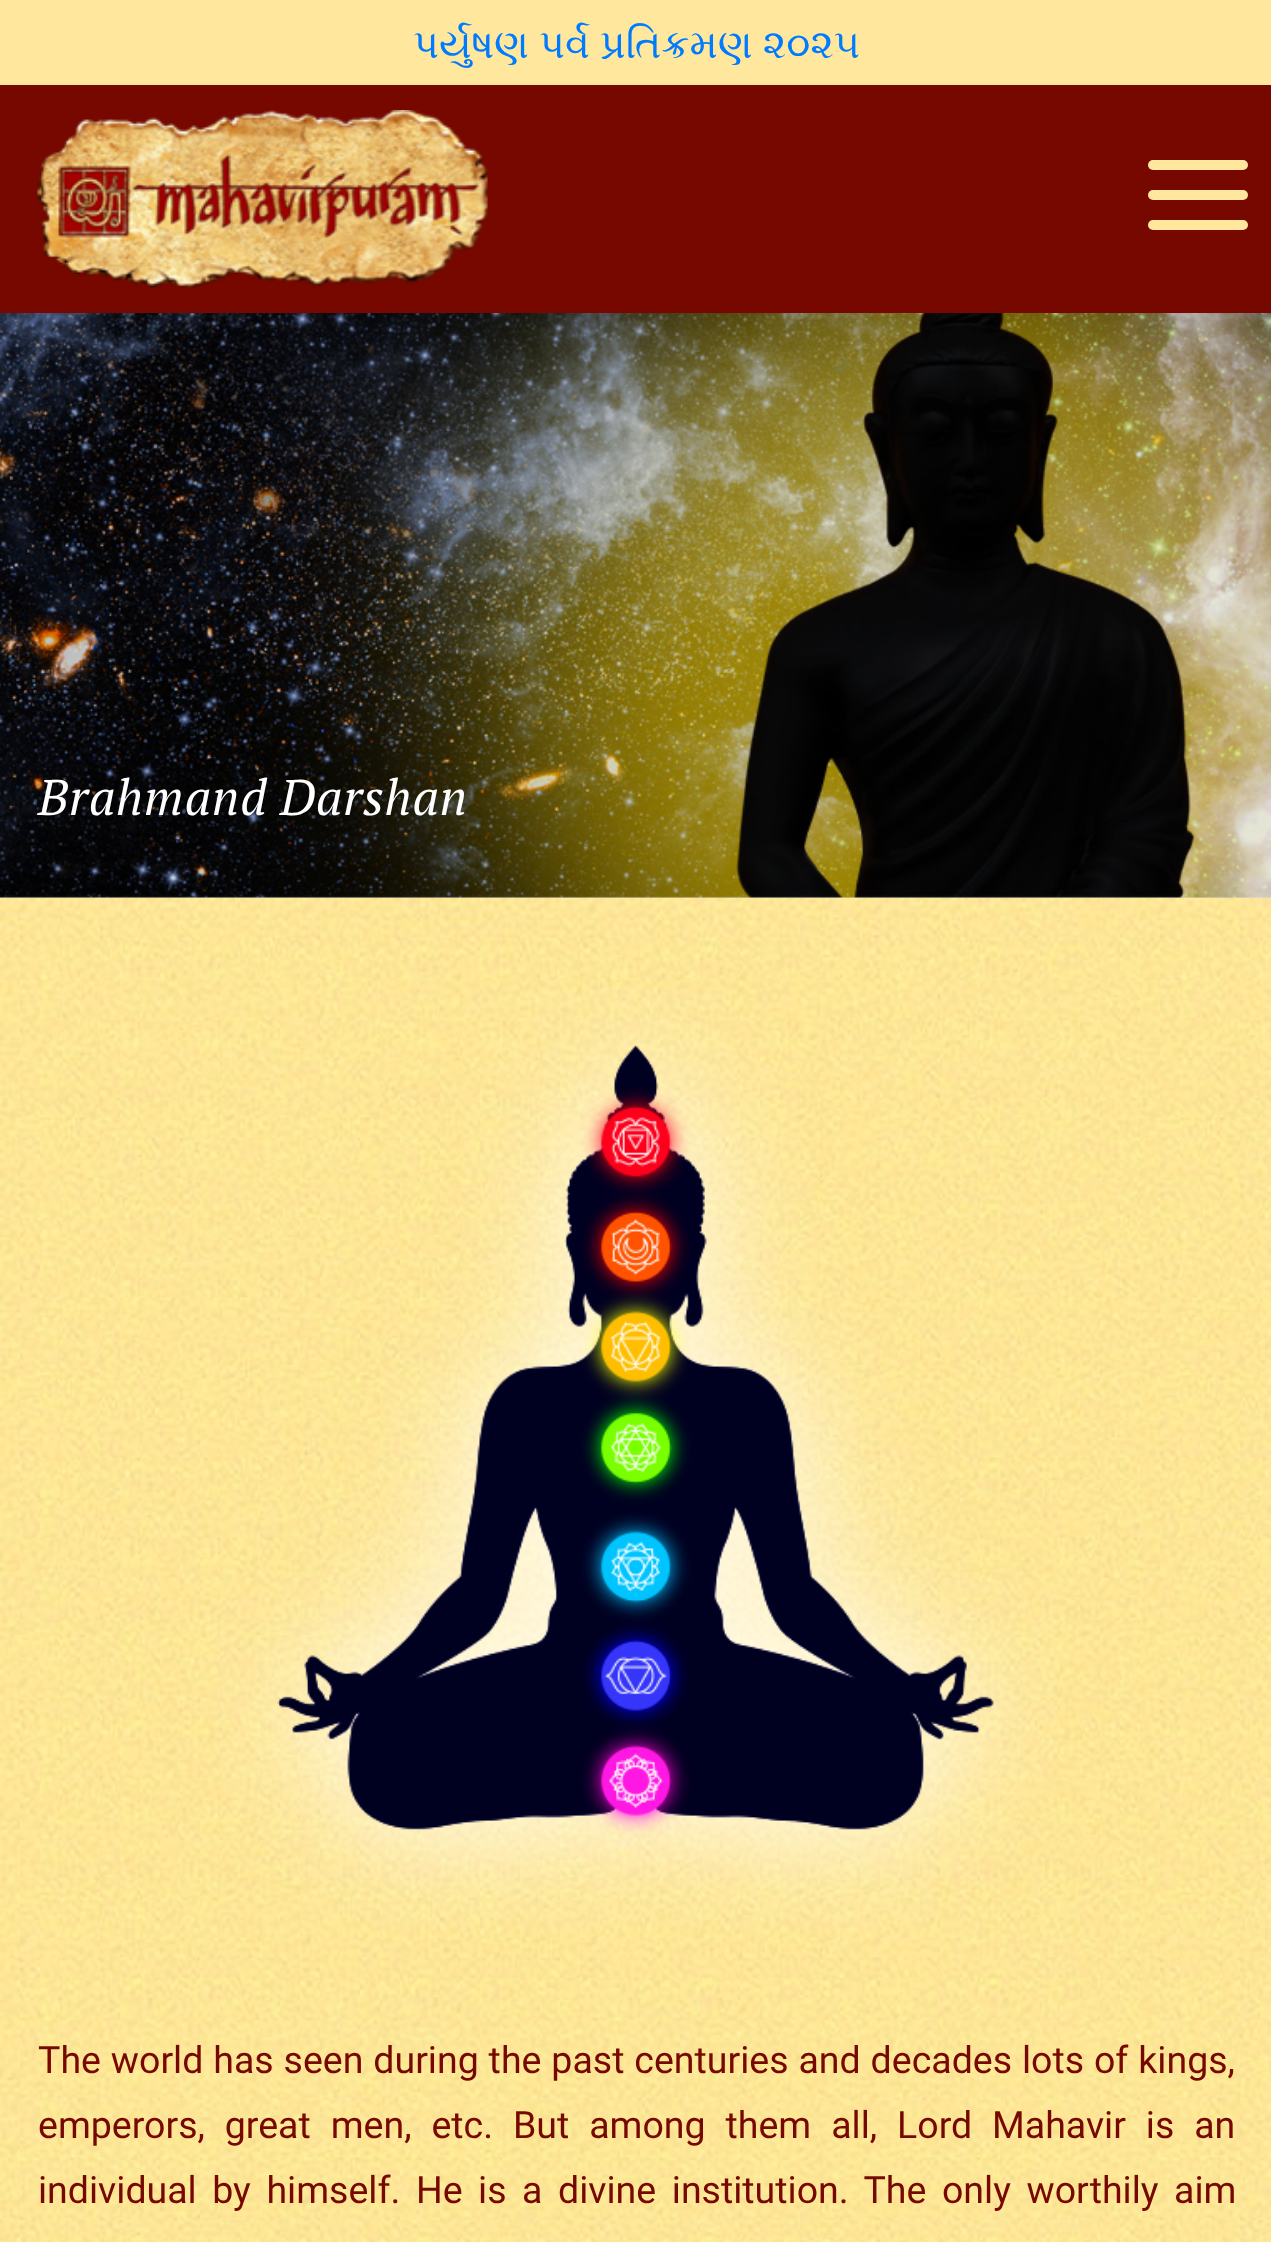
<?xml version="1.0" encoding="UTF-8"?>
<svg xmlns="http://www.w3.org/2000/svg" xmlns:xlink="http://www.w3.org/1999/xlink" width="1271" height="2242">
  <rect width="100%" height="100%" fill="#ffffff" />
  <rect width="1271" height="85" fill="#ffe89d" />
  <rect y="85" width="1271" height="228" fill="#770800" />
  <image x="37" y="110" width="451" height="178" xlink:href="image1.png" />
  <rect x="1148" y="190" width="100" height="10" rx="5" fill="#ffe89d" />
  <rect x="1148" y="160" width="100" height="10" rx="5" fill="#ffe89d" />
  <rect x="1148" y="220" width="100" height="10" rx="5" fill="#ffe89d" />
  <image x="0" y="897" width="1271" height="1345" xlink:href="image3.png" />
  <image x="0" y="313" width="1271" height="585" xlink:href="image2.png" />
  <rect y="313" width="1271" height="585" fill="#000000" fill-opacity="0.1" />
  <image x="215" y="988" width="841" height="937" xlink:href="image4.png" />
  <text x="413" y="58" style="font-family: FreeSerif; font-size: 40px; fill: #007bff">પર્યુષણ પર્વ પ્રતિક્રમણ ૨૦૨૫</text>
  <text x="38" y="815" style="font-family: PT Serif; font-size: 50px; font-style: italic; letter-spacing: 0.6px; fill: #ffffff">Brahmand Darshan</text>
  <text x="38" y="2073" word-spacing="0.6" style="font-family: Roboto; font-size: 37.5px; fill: #770800">The world has seen during the past centuries and decades lots of kings,</text>
  <text x="38" y="2138" word-spacing="10.6" style="font-family: Roboto; font-size: 37.5px; fill: #770800">emperors, great men, etc. But among them all, Lord Mahavir is an</text>
  <text x="38" y="2203" word-spacing="6.25" style="font-family: Roboto; font-size: 37.5px; fill: #770800">individual by himself. He is a divine institution. The only worthily aim</text>
</svg>
